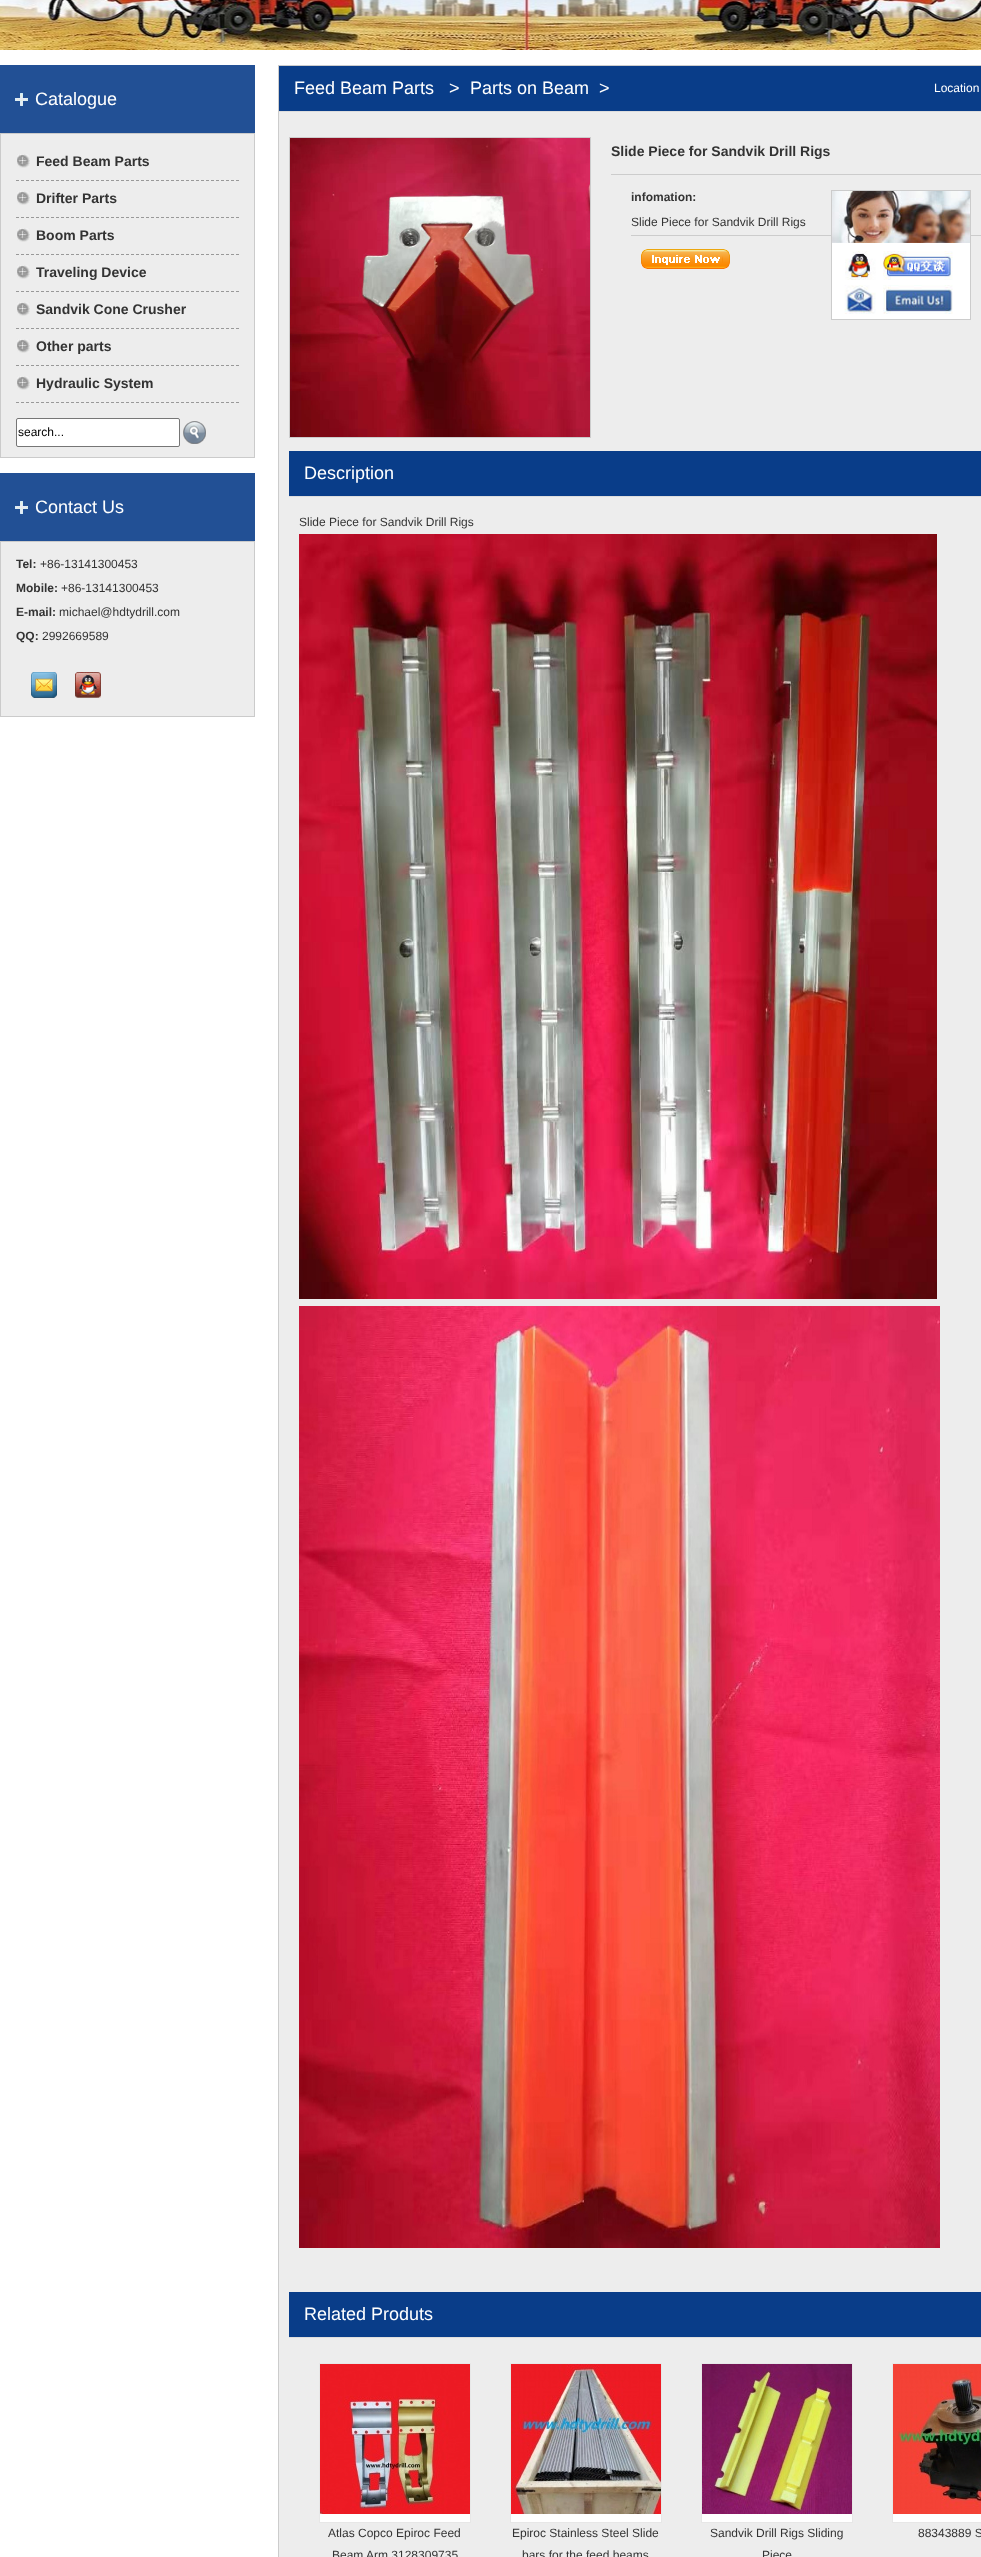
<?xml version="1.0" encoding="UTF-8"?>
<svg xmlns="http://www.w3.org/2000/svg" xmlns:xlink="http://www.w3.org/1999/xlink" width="981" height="2557">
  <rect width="100%" height="100%" fill="#ffffff" />
  <image x="0" y="0" width="981" height="50" xlink:href="image1.png" />
  <rect y="65" width="255" height="68" fill="#225095" />
  <image x="15" y="93" width="13" height="13" xlink:href="image2.png" />
  <rect x="0.5" y="133.5" width="254" height="324" fill="#ededed" stroke="#cbcbcb" />
  <image x="17" y="154" width="13" height="14" xlink:href="image3.png" />
  <path d="M 16 180.5 h 223" fill="none" stroke="#999999" stroke-dasharray="3 2" />
  <image x="17" y="191" width="13" height="14" xlink:href="image3.png" />
  <path d="M 16 217.5 h 223" fill="none" stroke="#999999" stroke-dasharray="3 2" />
  <image x="17" y="228" width="13" height="14" xlink:href="image3.png" />
  <path d="M 16 254.5 h 223" fill="none" stroke="#999999" stroke-dasharray="3 2" />
  <image x="17" y="265" width="13" height="14" xlink:href="image3.png" />
  <path d="M 16 291.5 h 223" fill="none" stroke="#999999" stroke-dasharray="3 2" />
  <image x="17" y="302" width="13" height="14" xlink:href="image3.png" />
  <path d="M 16 328.5 h 223" fill="none" stroke="#999999" stroke-dasharray="3 2" />
  <image x="17" y="339" width="13" height="14" xlink:href="image3.png" />
  <path d="M 16 365.5 h 223" fill="none" stroke="#999999" stroke-dasharray="3 2" />
  <image x="17" y="376" width="13" height="14" xlink:href="image3.png" />
  <path d="M 16 402.5 h 223" fill="none" stroke="#999999" stroke-dasharray="3 2" />
  <rect x="16.5" y="418.5" width="163" height="28" rx="1.5" fill="#ffffff" stroke="#767676" />
  <image x="183" y="421" width="23" height="23" xlink:href="image4.png" />
  <rect y="473" width="255" height="68" fill="#225095" />
  <image x="15" y="501" width="13" height="13" xlink:href="image2.png" />
  <rect x="0.5" y="541.5" width="254" height="175" fill="#ededed" stroke="#cbcbcb" />
  <image x="31" y="672" width="26" height="26" xlink:href="image5.png" />
  <image x="75" y="672" width="26" height="26" xlink:href="image6.png" />
  <rect x="279" y="112" width="702" height="2445" fill="#ededed" />
  <rect x="278.5" y="65.5" width="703" height="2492" fill="none" stroke="#cccccc" />
  <rect x="279" y="66" width="702" height="45" fill="#093d89" />
  <rect x="279" y="111" width="702" height="1" fill="#dddddd" />
  <rect x="289.5" y="137.5" width="301" height="300" fill="none" stroke="#cccccc" />
  <image x="290" y="138" width="300" height="299" xlink:href="image7.png" />
  <rect x="611" y="174" width="370" height="1" fill="#cccccc" />
  <rect x="631" y="235" width="350" height="1" fill="#cccccc" />
  <image x="641" y="249" width="89" height="20" xlink:href="image8.png" />
  <rect x="289" y="451" width="692" height="45" fill="#093d89" />
  <rect x="289" y="496" width="692" height="1" fill="#dddddd" />
  <image x="299" y="534" width="638" height="765" xlink:href="image9.png" />
  <image x="299" y="1306" width="641" height="942" xlink:href="image10.png" />
  <rect x="289" y="2292" width="692" height="45" fill="#093d89" />
  <rect x="289" y="2337" width="692" height="1" fill="#dddddd" />
  <rect x="320" y="2514" width="150" height="8" fill="#ffffff" />
  <rect x="319.5" y="2363.5" width="151" height="159" fill="none" stroke="#e7e7e7" />
  <image x="320" y="2364" width="150" height="150" xlink:href="image11.png" />
  <rect x="511" y="2514" width="150" height="8" fill="#ffffff" />
  <rect x="510.5" y="2363.5" width="151" height="159" fill="none" stroke="#e7e7e7" />
  <image x="511" y="2364" width="150" height="150" xlink:href="image12.png" />
  <rect x="702" y="2514" width="150" height="8" fill="#ffffff" />
  <rect x="701.5" y="2363.5" width="151" height="159" fill="none" stroke="#e7e7e7" />
  <image x="702" y="2364" width="150" height="150" xlink:href="image13.png" />
  <rect x="893" y="2514" width="88" height="8" fill="#ffffff" />
  <rect x="892.5" y="2363.5" width="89" height="159" fill="none" stroke="#e7e7e7" />
  <image x="893" y="2364" width="88" height="150" xlink:href="image14.png" />
  <rect x="832" y="243" width="138" height="76" fill="#ffffff" />
  <rect x="831.5" y="190.5" width="139" height="129" fill="none" stroke="#cccccc" />
  <image x="832" y="191" width="138" height="52" xlink:href="image15.png" />
  <image x="845" y="251" width="108" height="29" xlink:href="image16.png" />
  <image x="844" y="285" width="109" height="29" xlink:href="image17.png" />
  <text x="35" y="105" style="font-family: Liberation Sans; font-size: 18px; fill: #ffffff">Catalogue</text>
  <text x="36" y="166" style="font-family: Liberation Sans; font-size: 14px; font-weight: bold; fill: #333333">Feed Beam Parts</text>
  <text x="36" y="203" style="font-family: Liberation Sans; font-size: 14px; font-weight: bold; fill: #333333">Drifter Parts</text>
  <text x="36" y="240" style="font-family: Liberation Sans; font-size: 14px; font-weight: bold; fill: #333333">Boom Parts</text>
  <text x="36" y="277" style="font-family: Liberation Sans; font-size: 14px; font-weight: bold; fill: #333333">Traveling Device</text>
  <text x="36" y="314" style="font-family: Liberation Sans; font-size: 14px; font-weight: bold; fill: #333333">Sandvik Cone Crusher</text>
  <text x="36" y="351" style="font-family: Liberation Sans; font-size: 14px; font-weight: bold; fill: #333333">Other parts</text>
  <text x="36" y="388" style="font-family: Liberation Sans; font-size: 14px; font-weight: bold; fill: #333333">Hydraulic System</text>
  <text x="18" y="436" style="font-family: Liberation Sans; font-size: 12px; fill: #000000">search...</text>
  <text x="35" y="513" style="font-family: Liberation Sans; font-size: 18px; fill: #ffffff">Contact Us</text>
  <text x="16" y="568" style="font-family: Liberation Sans; font-size: 12px; font-weight: bold; fill: #333333">Tel:</text>
  <text x="40" y="568" style="font-family: Liberation Sans; font-size: 12px; fill: #333333">+86-13141300453</text>
  <text x="16" y="592" style="font-family: Liberation Sans; font-size: 12px; font-weight: bold; fill: #333333">Mobile:</text>
  <text x="61" y="592" style="font-family: Liberation Sans; font-size: 12px; fill: #333333">+86-13141300453</text>
  <text x="16" y="616" style="font-family: Liberation Sans; font-size: 12px; font-weight: bold; fill: #333333">E-mail:</text>
  <text x="59" y="616" style="font-family: Liberation Sans; font-size: 12px; fill: #333333">michael@hdtydrill.com</text>
  <text x="16" y="640" style="font-family: Liberation Sans; font-size: 12px; font-weight: bold; fill: #333333">QQ:</text>
  <text x="42" y="640" style="font-family: Liberation Sans; font-size: 12px; fill: #333333">2992669589</text>
  <text x="294" y="94" style="font-family: Liberation Sans; font-size: 18px; fill: #ffffff">Feed Beam Parts</text>
  <text x="449" y="94" style="font-family: Liberation Sans; font-size: 18px; fill: #ffffff">&gt;</text>
  <text x="470" y="94" style="font-family: Liberation Sans; font-size: 18px; fill: #ffffff">Parts on Beam</text>
  <text x="599" y="94" style="font-family: Liberation Sans; font-size: 18px; fill: #ffffff">&gt;</text>
  <text x="934" y="92" style="font-family: Liberation Sans; font-size: 12px; fill: #ffffff">Location</text>
  <text x="611" y="156" style="font-family: Liberation Sans; font-size: 14px; font-weight: bold; fill: #333333">Slide Piece for Sandvik Drill Rigs</text>
  <text x="631" y="201" style="font-family: Liberation Sans; font-size: 12px; font-weight: bold; fill: #333333">infomation:</text>
  <text x="631" y="226" style="font-family: Liberation Sans; font-size: 12px; fill: #333333">Slide Piece for Sandvik Drill Rigs</text>
  <text x="304" y="479" style="font-family: Liberation Sans; font-size: 18px; fill: #ffffff">Description</text>
  <text x="299" y="526" style="font-family: Liberation Sans; font-size: 12px; fill: #333333">Slide Piece for Sandvik Drill Rigs</text>
  <text x="304" y="2320" style="font-family: Liberation Sans; font-size: 18px; fill: #ffffff">Related Produts</text>
  <text x="328" y="2537" style="font-family: Liberation Sans; font-size: 12px; fill: #333333">Atlas Copco Epiroc Feed</text>
  <text x="332" y="2559" style="font-family: Liberation Sans; font-size: 12px; fill: #333333">Beam Arm 3128309735</text>
  <text x="512" y="2537" style="font-family: Liberation Sans; font-size: 12px; fill: #333333">Epiroc Stainless Steel Slide</text>
  <text x="522" y="2559" style="font-family: Liberation Sans; font-size: 12px; fill: #333333">bars for the feed beams</text>
  <text x="710" y="2537" style="font-family: Liberation Sans; font-size: 12px; fill: #333333">Sandvik Drill Rigs Sliding</text>
  <text x="762" y="2559" style="font-family: Liberation Sans; font-size: 12px; fill: #333333">Piece</text>
  <text x="918" y="2537" style="font-family: Liberation Sans; font-size: 12px; fill: #333333">88343889 S</text>
</svg>
